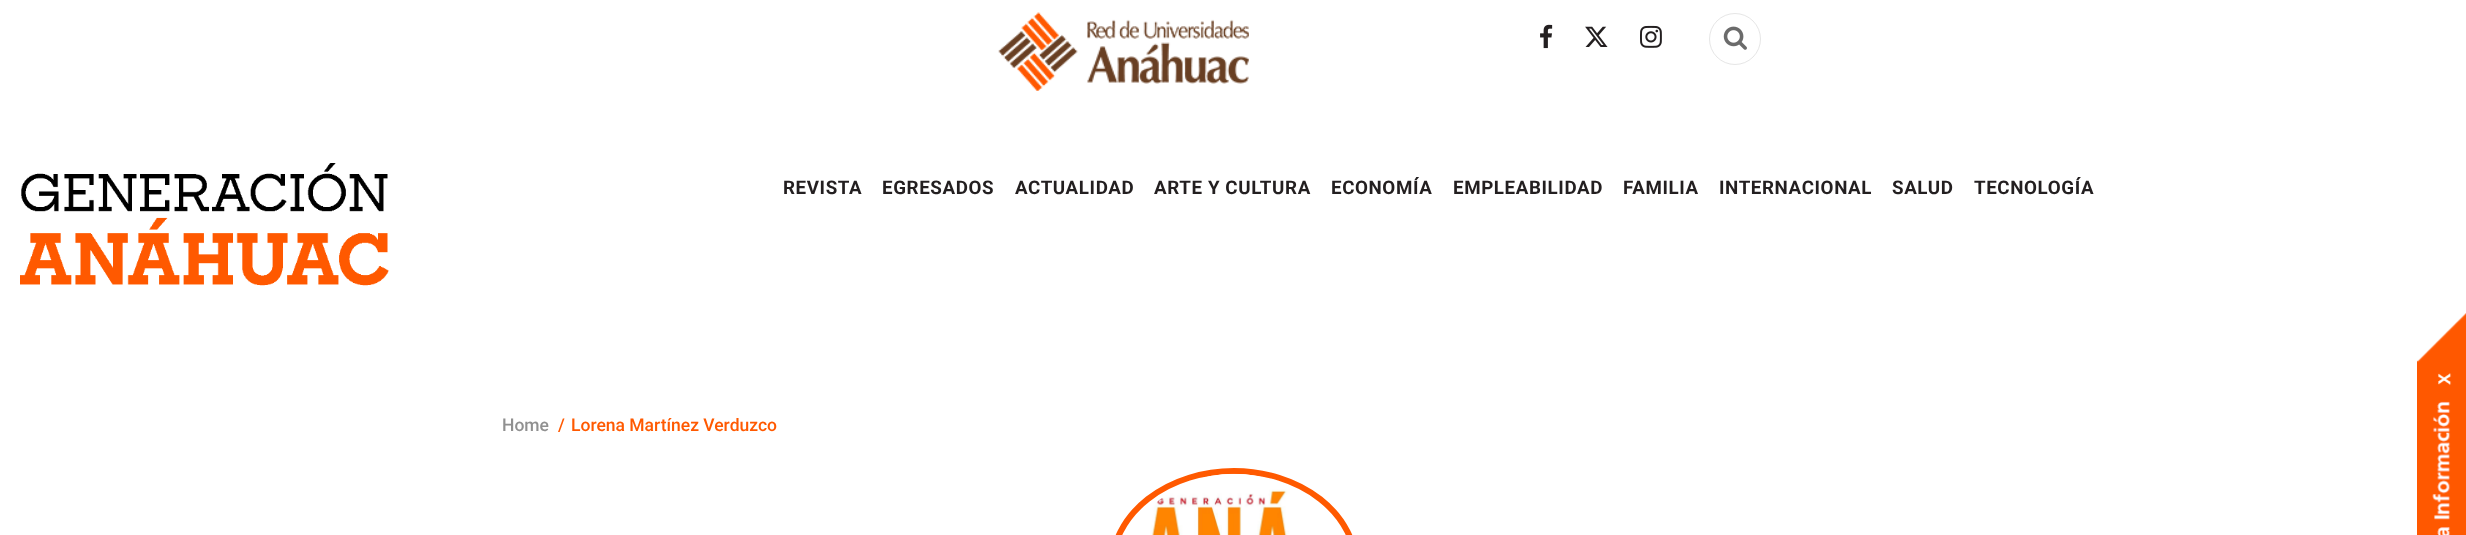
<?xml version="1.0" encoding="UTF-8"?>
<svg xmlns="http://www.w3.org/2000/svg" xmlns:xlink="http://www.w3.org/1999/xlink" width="2466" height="535">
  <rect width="100%" height="100%" fill="#ffffff" />
  <image x="998" y="12" width="251" height="79" xlink:href="image1.png" />
  <image x="1540" y="24" width="13" height="25" xlink:href="image2.png" />
  <image x="1585" y="26" width="23" height="21" xlink:href="image3.png" />
  <image x="1640" y="25" width="22" height="23" xlink:href="image4.png" />
  <circle cx="1735" cy="39" r="25.5" fill="none" stroke="#e6e6e6" />
  <image x="1723" y="26" width="24" height="24" xlink:href="image5.png" />
  <image x="20" y="163" width="369" height="123" xlink:href="image6.png" />
  <rect x="1112" y="471" width="244" height="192" rx="122" fill="none" stroke="#ff5900" stroke-width="6" />
  <image x="1130" y="473" width="208" height="62" xlink:href="image7.png" />
  <image x="2417" y="313" width="49" height="222" xlink:href="image8.png" />
  <text x="783" y="194" style="font-family: Roboto; font-size: 18.75px; font-weight: bold; letter-spacing: 0.6px; fill: #231f20">REVISTA</text>
  <text x="882" y="194" style="font-family: Roboto; font-size: 18.75px; font-weight: bold; letter-spacing: 0.6px; fill: #231f20">EGRESADOS</text>
  <text x="1015" y="194" style="font-family: Roboto; font-size: 18.75px; font-weight: bold; letter-spacing: 0.6px; fill: #231f20">ACTUALIDAD</text>
  <text x="1154" y="194" style="font-family: Roboto; font-size: 18.75px; font-weight: bold; letter-spacing: 0.6px; fill: #231f20">ARTE Y CULTURA</text>
  <text x="1331" y="194" style="font-family: Roboto; font-size: 18.75px; font-weight: bold; letter-spacing: 0.6px; fill: #231f20">ECONOMÍA</text>
  <text x="1453" y="194" style="font-family: Roboto; font-size: 18.75px; font-weight: bold; letter-spacing: 0.6px; fill: #231f20">EMPLEABILIDAD</text>
  <text x="1623" y="194" style="font-family: Roboto; font-size: 18.75px; font-weight: bold; letter-spacing: 0.6px; fill: #231f20">FAMILIA</text>
  <text x="1719" y="194" style="font-family: Roboto; font-size: 18.75px; font-weight: bold; letter-spacing: 0.6px; fill: #231f20">INTERNACIONAL</text>
  <text x="1892" y="194" style="font-family: Roboto; font-size: 18.75px; font-weight: bold; letter-spacing: 0.6px; fill: #231f20">SALUD</text>
  <text x="1974" y="194" style="font-family: Roboto; font-size: 18.75px; font-weight: bold; letter-spacing: 0.6px; fill: #231f20">TECNOLOGÍA</text>
  <text x="502" y="431" style="font-family: Roboto; font-size: 17.5px; font-weight: 500; fill: #909090">Home</text>
  <text x="558" y="431" style="font-family: Roboto; font-size: 17.5px; font-weight: 500; fill: #ff5900">/</text>
  <text x="571" y="431" style="font-family: Roboto; font-size: 17.5px; font-weight: 500; fill: #ff5900">Lorena Martínez Verduzco</text>
</svg>
